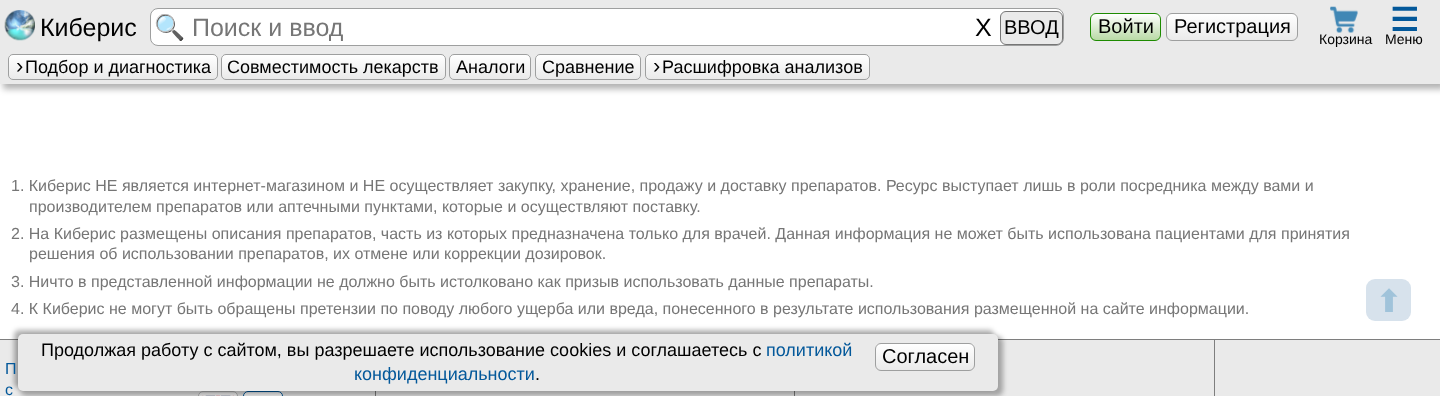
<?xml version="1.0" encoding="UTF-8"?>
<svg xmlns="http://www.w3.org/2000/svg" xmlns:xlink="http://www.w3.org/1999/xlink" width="1440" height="396">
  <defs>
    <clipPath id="clip1"><rect x="1090" y="13" width="71" height="28" rx="6" /></clipPath>
    <linearGradient id="g1" gradientUnits="userSpaceOnUse" x1="1126" y1="40" x2="1126" y2="14"><stop offset="0" stop-color="#b9daa6" /><stop offset="1" stop-color="#ffffff" /></linearGradient>
    <clipPath id="clip2"><rect x="1166" y="13" width="132" height="28" rx="6" /></clipPath>
    <linearGradient id="g2" gradientUnits="userSpaceOnUse" x1="1232" y1="40" x2="1232" y2="14"><stop offset="0" stop-color="#eaeaea" /><stop offset="1" stop-color="#ffffff" /></linearGradient>
    <clipPath id="clip3"><rect x="8" y="54" width="210" height="26" rx="5" /></clipPath>
    <linearGradient id="g3" gradientUnits="userSpaceOnUse" x1="113" y1="79" x2="113" y2="55"><stop offset="0" stop-color="#eaeaea" /><stop offset="1" stop-color="#ffffff" /></linearGradient>
    <clipPath id="clip4"><rect x="221" y="54" width="225" height="26" rx="5" /></clipPath>
    <linearGradient id="g4" gradientUnits="userSpaceOnUse" x1="334" y1="79" x2="334" y2="55"><stop offset="0" stop-color="#eaeaea" /><stop offset="1" stop-color="#ffffff" /></linearGradient>
    <clipPath id="clip5"><rect x="449" y="54" width="82" height="26" rx="5" /></clipPath>
    <linearGradient id="g5" gradientUnits="userSpaceOnUse" x1="490" y1="79" x2="490" y2="55"><stop offset="0" stop-color="#eaeaea" /><stop offset="1" stop-color="#ffffff" /></linearGradient>
    <clipPath id="clip6"><rect x="535" y="54" width="106" height="26" rx="5" /></clipPath>
    <linearGradient id="g6" gradientUnits="userSpaceOnUse" x1="588" y1="79" x2="588" y2="55"><stop offset="0" stop-color="#eaeaea" /><stop offset="1" stop-color="#ffffff" /></linearGradient>
    <clipPath id="clip7"><rect x="645" y="54" width="225" height="26" rx="5" /></clipPath>
    <linearGradient id="g7" gradientUnits="userSpaceOnUse" x1="758" y1="79" x2="758" y2="55"><stop offset="0" stop-color="#eaeaea" /><stop offset="1" stop-color="#ffffff" /></linearGradient>
    <clipPath id="clip8"><rect x="198" y="391" width="40" height="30" rx="5" /></clipPath>
    <linearGradient id="g8" gradientUnits="userSpaceOnUse" x1="218" y1="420" x2="218" y2="393"><stop offset="0" stop-color="#eaeaea" /><stop offset="1" stop-color="#f9f9f9" /></linearGradient>
    <clipPath id="clip9"><rect x="243" y="391" width="40" height="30" rx="5" /></clipPath>
    <linearGradient id="g9" gradientUnits="userSpaceOnUse" x1="263" y1="393" x2="263" y2="365"><stop offset="0" stop-color="#edf2f6" /><stop offset="1" stop-color="#ffffff" /></linearGradient>
    <linearGradient id="g10" gradientUnits="userSpaceOnUse" x1="263" y1="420" x2="263" y2="393"><stop offset="0" stop-color="#edf2f6" /><stop offset="1" stop-color="#ffffff" /></linearGradient>
    <clipPath id="clip10"><rect x="875" y="343" width="100" height="28" rx="6" /></clipPath>
    <linearGradient id="g11" gradientUnits="userSpaceOnUse" x1="925" y1="370" x2="925" y2="344"><stop offset="0" stop-color="#eaeaea" /><stop offset="1" stop-color="#ffffff" /></linearGradient>
    <clipPath id="clip11"><rect x="154" y="13" width="811" height="30" /></clipPath>
  </defs>
  <rect width="100%" height="100%" fill="#ffffff" />
  <rect x="3" y="3" width="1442" height="86" fill="#000000" fill-opacity="0.3" filter="blur(3px)" />
  <rect width="1440" height="84" fill="#eaeaea" />
  <image x="4" y="10" width="31" height="31" xlink:href="image1.png" />
  <rect x="150.5" y="8.5" width="913" height="37" rx="7.5" fill="#ffffff" stroke="#9e9f9f" />
  <rect x="1000.5" y="11.5" width="62" height="33" rx="5.5" fill="#eaeaea" stroke="#767676" />
  <g clip-path="url(#clip1)">
    <rect x="1090" y="14" width="71" height="26" fill="url(#g1)" />
  </g>
  <rect x="1090.5" y="13.5" width="70" height="27" rx="5.5" fill="none" stroke="#1d8b00" />
  <g clip-path="url(#clip2)">
    <rect x="1166" y="14" width="132" height="26" fill="url(#g2)" />
  </g>
  <rect x="1166.5" y="13.5" width="131" height="27" rx="5.5" fill="none" stroke="#9e9f9f" />
  <image x="1330" y="6" width="28" height="27" xlink:href="image2.png" />
  <g clip-path="url(#clip3)">
    <rect x="8" y="55" width="210" height="24" fill="url(#g3)" />
  </g>
  <rect x="8.5" y="54.5" width="209" height="25" rx="4.5" fill="none" stroke="#9e9f9f" />
  <g clip-path="url(#clip4)">
    <rect x="221" y="55" width="225" height="24" fill="url(#g4)" />
  </g>
  <rect x="221.5" y="54.5" width="224" height="25" rx="4.5" fill="none" stroke="#9e9f9f" />
  <g clip-path="url(#clip5)">
    <rect x="449" y="55" width="82" height="24" fill="url(#g5)" />
  </g>
  <rect x="449.5" y="54.5" width="81" height="25" rx="4.5" fill="none" stroke="#9e9f9f" />
  <g clip-path="url(#clip6)">
    <rect x="535" y="55" width="106" height="24" fill="url(#g6)" />
  </g>
  <rect x="535.5" y="54.5" width="105" height="25" rx="4.5" fill="none" stroke="#9e9f9f" />
  <g clip-path="url(#clip7)">
    <rect x="645" y="55" width="225" height="24" fill="url(#g7)" />
  </g>
  <rect x="645.5" y="54.5" width="224" height="25" rx="4.5" fill="none" stroke="#9e9f9f" />
  <rect x="1366" y="279" width="45" height="42" rx="9" fill="#d7e2ec" />
  <rect y="340" width="1440" height="56" fill="#eaeaea" />
  <rect y="339" width="1440" height="1" fill="#7e7e7e" />
  <rect x="375" y="391" width="1" height="5" fill="#7e7e7e" />
  <g clip-path="url(#clip8)">
    <rect x="198" y="393" width="40" height="3" fill="url(#g8)" />
  </g>
  <rect x="198.5" y="391.5" width="39" height="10" rx="4.5" fill="none" stroke="#b5b6b6" />
  <image x="202" y="395" width="32" height="1" xlink:href="image3.png" />
  <g clip-path="url(#clip9)">
    <rect x="243" y="391" width="40" height="2" fill="url(#g9)" />
    <rect x="243" y="393" width="40" height="3" fill="url(#g10)" />
  </g>
  <rect x="243.5" y="391.5" width="39" height="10" rx="4.5" fill="none" stroke="#03589a" />
  <rect x="794" y="391" width="1" height="5" fill="#7e7e7e" />
  <rect x="1214" y="339" width="1" height="57" fill="#7e7e7e" />
  <rect x="14" y="330" width="980" height="58" rx="5" fill="#000000" fill-opacity="0.3" filter="blur(2.5px)" />
  <rect x="20" y="336" width="983" height="60" rx="6" fill="#000000" fill-opacity="0.3" filter="blur(2.5px)" />
  <rect x="18" y="334" width="980" height="57" rx="5" fill="#eaeaea" />
  <g clip-path="url(#clip10)">
    <rect x="875" y="344" width="100" height="26" fill="url(#g11)" />
  </g>
  <rect x="875.5" y="343.5" width="99" height="27" rx="5.5" fill="none" stroke="#9e9f9f" />
  <text x="40" y="36" style="font-family: Liberation Sans; font-size: 25px; fill: #000000">Киберис</text>
  <g clip-path="url(#clip11)">
    <text x="154" y="36" style="font-family: Noto Color Emoji; font-size: 25px; fill: #767676">🔍</text>
  </g>
  <text x="192" y="36" style="font-family: Liberation Sans; font-size: 25px; fill: #767676">Поиск и ввод</text>
  <text x="975" y="36" style="font-family: Liberation Sans; font-size: 25px; fill: #000000">X</text>
  <text x="1004" y="34" style="font-family: Liberation Sans; font-size: 20px; fill: #000000">ВВОД</text>
  <text x="1098" y="33" style="font-family: Liberation Sans; font-size: 20px; fill: #000000">Войти</text>
  <text x="1174" y="33" style="font-family: Liberation Sans; font-size: 20px; fill: #000000">Регистрация</text>
  <text x="1390" y="31" style="font-family: DejaVu Sans; font-size: 32px; font-weight: bold; fill: #03589a">☰</text>
  <text x="1385" y="44" style="font-family: Liberation Sans; font-size: 14px; fill: #000000">Меню</text>
  <text x="1319" y="44" style="font-family: Liberation Sans; font-size: 14px; fill: #000000">Корзина</text>
  <text x="16" y="73" style="font-family: Liberation Sans; font-size: 22px; fill: #000000">›</text>
  <text x="25" y="73" style="font-family: Liberation Sans; font-size: 18px; fill: #000000">Подбор и диагностика</text>
  <text x="227" y="73" style="font-family: Liberation Sans; font-size: 18px; fill: #000000">Совместимость лекарств</text>
  <text x="456" y="73" style="font-family: Liberation Sans; font-size: 18px; fill: #000000">Аналоги</text>
  <text x="542" y="73" style="font-family: Liberation Sans; font-size: 18px; fill: #000000">Сравнение</text>
  <text x="653" y="73" style="font-family: Liberation Sans; font-size: 22px; fill: #000000">›</text>
  <text x="662" y="73" style="font-family: Liberation Sans; font-size: 18px; fill: #000000">Расшифровка анализов</text>
  <text x="11" y="191" style="font-family: Liberation Sans; font-size: 16px; fill: #767676">1. Киберис НЕ является интернет-магазином и НЕ осуществляет закупку, хранение, продажу и доставку препаратов. Ресурс выступает лишь в роли посредника между вами и</text>
  <text x="29" y="212" style="font-family: Liberation Sans; font-size: 16px; fill: #767676">производителем препаратов или аптечными пунктами, которые и осуществляют поставку.</text>
  <text x="11" y="239" style="font-family: Liberation Sans; font-size: 16px; fill: #767676">2. На Киберис размещены описания препаратов, часть из которых предназначена только для врачей. Данная информация не может быть использована пациентами для принятия</text>
  <text x="29" y="259" style="font-family: Liberation Sans; font-size: 16px; fill: #767676">решения об использовании препаратов, их отмене или коррекции дозировок.</text>
  <text x="11" y="287" style="font-family: Liberation Sans; font-size: 16px; fill: #767676">3. Ничто в представленной информации не должно быть истолковано как призыв использовать данные препараты.</text>
  <text x="11" y="314" style="font-family: Liberation Sans; font-size: 16px; fill: #767676">4. К Киберис не могут быть обращены претензии по поводу любого ущерба или вреда, понесенного в результате использования размещенной на сайте информации.</text>
  <text x="1376" y="312" style="font-family: DejaVu Sans; font-size: 30px; font-weight: bold; fill: #a0c3da">⬆</text>
  <text x="5" y="374" style="font-family: Liberation Sans; font-size: 16px; fill: #03589a">П</text>
  <text x="5" y="395" style="font-family: Liberation Sans; font-size: 16px; fill: #03589a">с</text>
  <text x="41" y="356" style="font-family: Liberation Sans; font-size: 18px; fill: #000000">Продолжая работу с сайтом, вы разрешаете использование сookies и соглашаетесь с</text>
  <text x="766" y="356" style="font-family: Liberation Sans; font-size: 18px; fill: #03589a">политикой</text>
  <text x="882" y="363" style="font-family: Liberation Sans; font-size: 20px; fill: #000000">Согласен</text>
  <text x="354" y="380" style="font-family: Liberation Sans; font-size: 18px; fill: #03589a">конфиденциальности</text>
  <text x="535" y="380" style="font-family: Liberation Sans; font-size: 18px; fill: #000000">.</text>
</svg>
